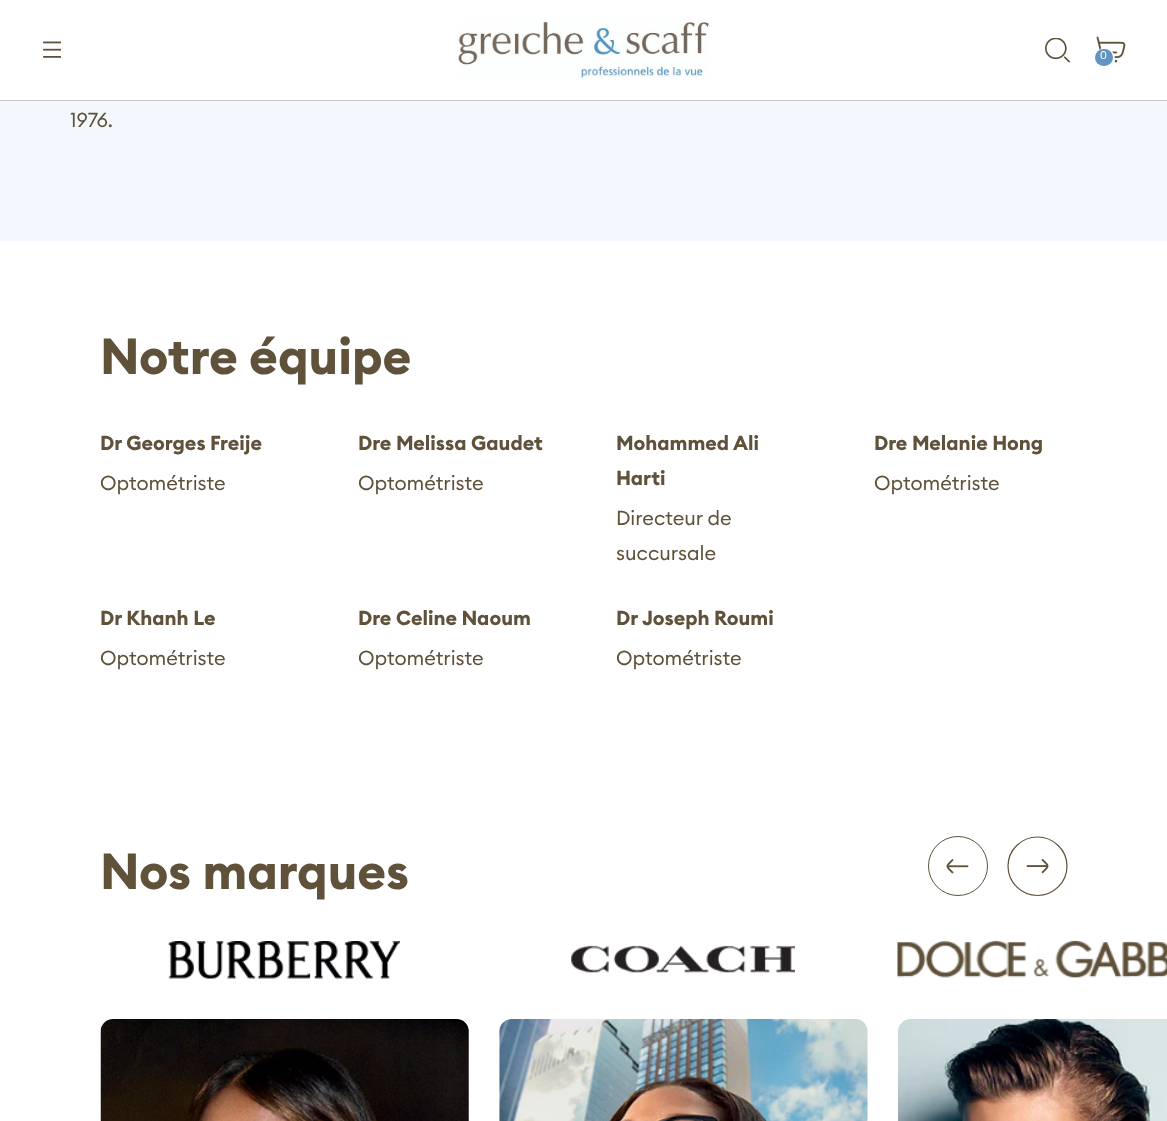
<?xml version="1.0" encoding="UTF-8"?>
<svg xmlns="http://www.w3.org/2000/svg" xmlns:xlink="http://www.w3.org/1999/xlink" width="1167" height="1121">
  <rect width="100%" height="100%" fill="#ffffff" />
  <rect y="100" width="1167" height="1" fill="#c7c6c4" />
  <image x="43" y="41" width="18" height="17" xlink:href="image1.png" />
  <image x="458" y="22" width="251" height="56" xlink:href="image2.png" />
  <image x="1045" y="38" width="25" height="25" xlink:href="image3.png" />
  <image x="1096" y="36" width="30" height="27" xlink:href="image4.png" />
  <circle cx="1104.5" cy="58.5" r="9.5" fill="none" stroke="#ffffff" stroke-width="2" />
  <rect x="1095" y="49" width="18" height="17" rx="8.5" fill="#6095c1" />
  <rect y="101" width="1167" height="140" fill="#f3f8ff" />
  <circle cx="958" cy="866" r="29.5" fill="none" stroke="#60513a" />
  <image x="946" y="859" width="23" height="15" xlink:href="image5.png" />
  <path d="M 1037.5 895.5 c -16 0 -29.5 -13 -29.5 -29.5 c 0 -16 13.5 -29 29.5 -29 c 16 0 29.5 13 29.5 29 c 0 16.5 -13.5 29.5 -29.5 29.5 z" fill="none" stroke="#60513a" stroke-width="1.2" />
  <image x="1026" y="859" width="23" height="15" xlink:href="image6.png" />
  <image x="168" y="941" width="232" height="38" xlink:href="image7.png" />
  <image x="100" y="1019" width="369" height="102" xlink:href="image8.png" />
  <image x="571" y="945" width="224" height="28" xlink:href="image9.png" />
  <image x="499" y="1019" width="369" height="102" xlink:href="image10.png" />
  <image x="897" y="940" width="270" height="38" xlink:href="image11.png" />
  <image x="898" y="1019" width="269" height="102" xlink:href="image12.png" />
  <text x="1100" y="59" style="font-family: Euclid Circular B; font-size: 11px; fill: #ffffff">0</text>
  <text x="70" y="127" style="font-family: Euclid Circular B; font-size: 20px; fill: #60513a">1976.</text>
  <text x="100" y="374" style="font-family: Euclid Circular B; font-size: 50px; font-weight: bold; fill: #60513a">Notre équipe</text>
  <text x="100" y="450" style="font-family: Euclid Circular B; font-size: 20px; font-weight: bold; fill: #60513a">Dr Georges Freije</text>
  <text x="100" y="490" style="font-family: Euclid Circular B; font-size: 20px; fill: #60513a">Optométriste</text>
  <text x="358" y="450" style="font-family: Euclid Circular B; font-size: 20px; font-weight: bold; fill: #60513a">Dre Melissa Gaudet</text>
  <text x="358" y="490" style="font-family: Euclid Circular B; font-size: 20px; fill: #60513a">Optométriste</text>
  <text x="616" y="450" style="font-family: Euclid Circular B; font-size: 20px; font-weight: bold; fill: #60513a">Mohammed Ali</text>
  <text x="616" y="485" style="font-family: Euclid Circular B; font-size: 20px; font-weight: bold; fill: #60513a">Harti</text>
  <text x="616" y="525" style="font-family: Euclid Circular B; font-size: 20px; fill: #60513a">Directeur de</text>
  <text x="616" y="560" style="font-family: Euclid Circular B; font-size: 20px; fill: #60513a">succursale</text>
  <text x="874" y="450" style="font-family: Euclid Circular B; font-size: 20px; font-weight: bold; fill: #60513a">Dre Melanie Hong</text>
  <text x="874" y="490" style="font-family: Euclid Circular B; font-size: 20px; fill: #60513a">Optométriste</text>
  <text x="100" y="625" style="font-family: Euclid Circular B; font-size: 20px; font-weight: bold; fill: #60513a">Dr Khanh Le</text>
  <text x="100" y="665" style="font-family: Euclid Circular B; font-size: 20px; fill: #60513a">Optométriste</text>
  <text x="358" y="625" style="font-family: Euclid Circular B; font-size: 20px; font-weight: bold; fill: #60513a">Dre Celine Naoum</text>
  <text x="358" y="665" style="font-family: Euclid Circular B; font-size: 20px; fill: #60513a">Optométriste</text>
  <text x="616" y="625" style="font-family: Euclid Circular B; font-size: 20px; font-weight: bold; fill: #60513a">Dr</text>
  <text x="642" y="625" style="font-family: Euclid Circular B; font-size: 20px; font-weight: bold; fill: #60513a">Joseph Roumi</text>
  <text x="616" y="665" style="font-family: Euclid Circular B; font-size: 20px; fill: #60513a">Optométriste</text>
  <text x="100" y="889" style="font-family: Euclid Circular B; font-size: 50px; font-weight: bold; fill: #60513a">Nos marques</text>
</svg>
